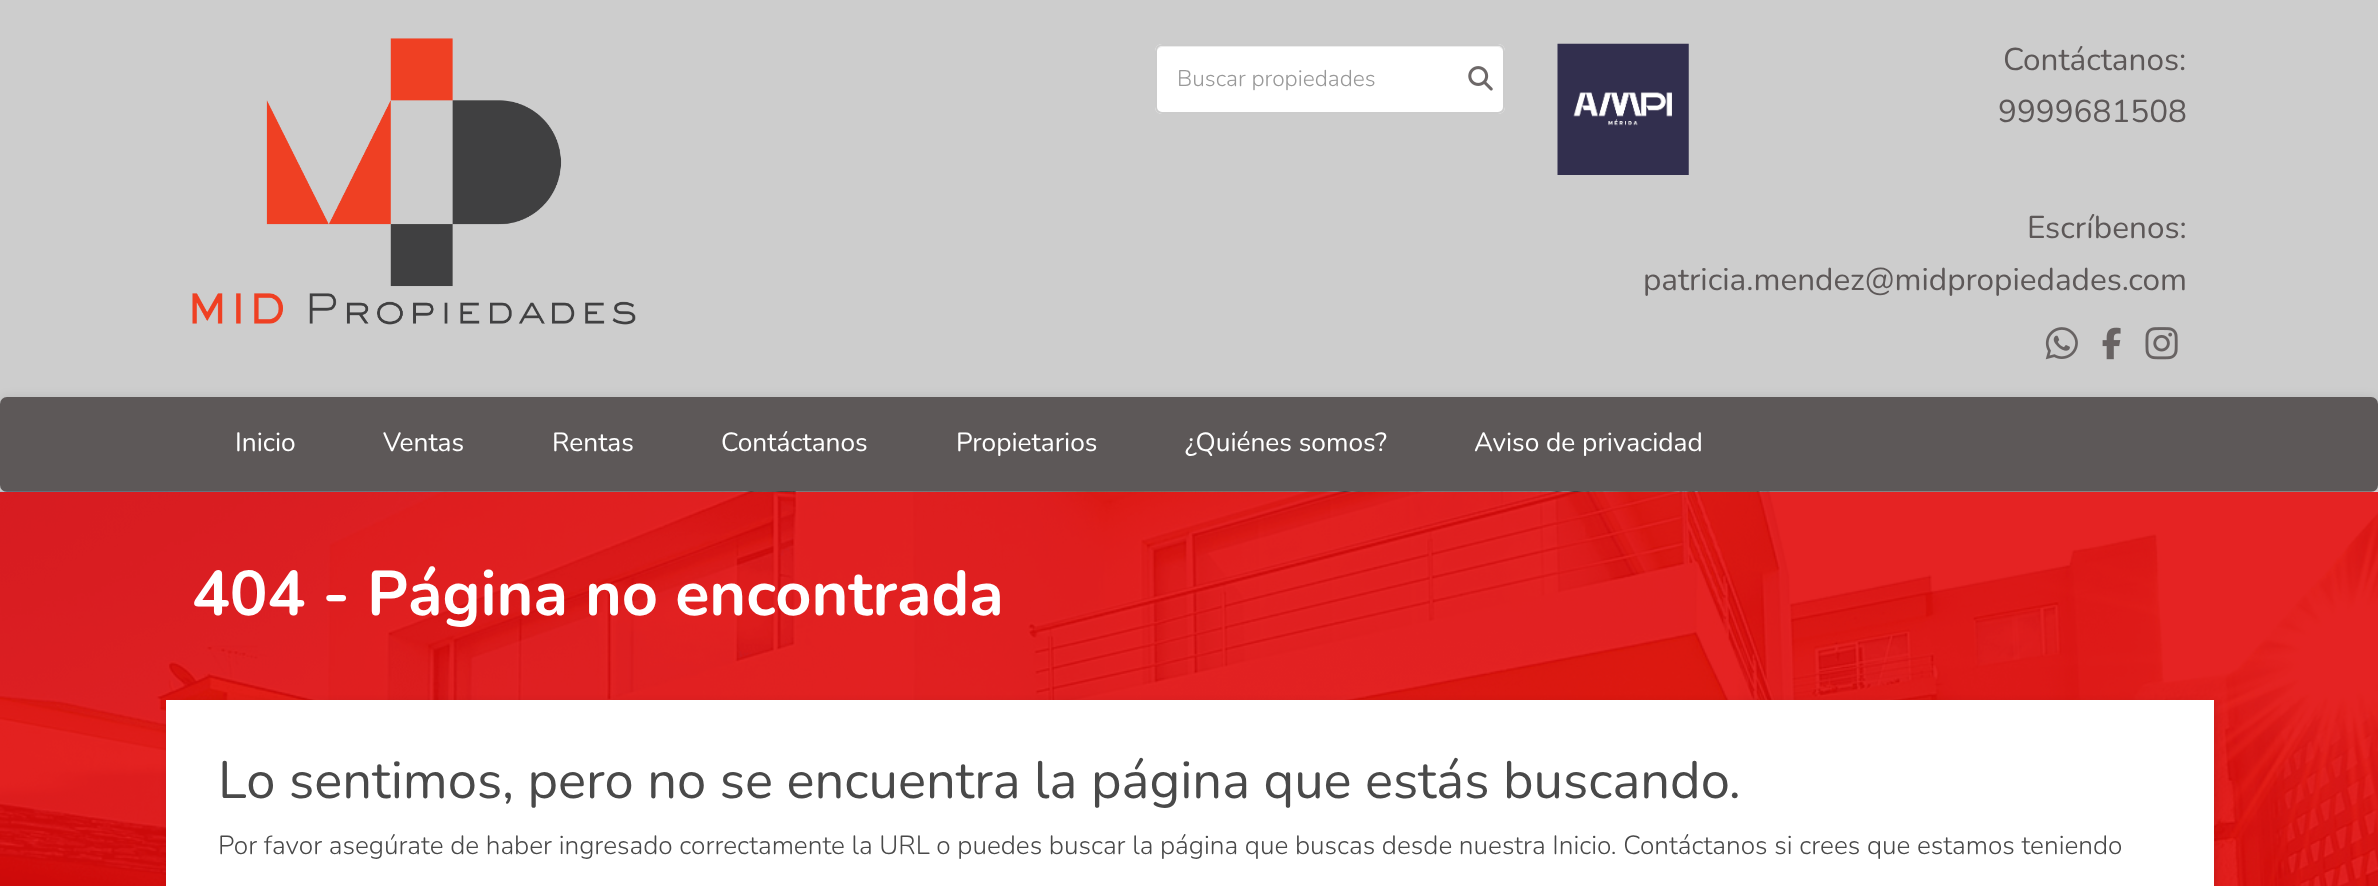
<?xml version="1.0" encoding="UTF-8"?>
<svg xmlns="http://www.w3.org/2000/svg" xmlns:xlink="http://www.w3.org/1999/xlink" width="2378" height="886">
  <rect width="100%" height="100%" fill="#cdcdcd" />
  <image x="192" y="38" width="444" height="287" xlink:href="image1.png" />
  <rect x="1155" y="44" width="350" height="70" rx="7" fill="#ffffff" />
  <path d="M 1162 47 h 336 c 3 0 5 3 5 5 c 0 -3 -2 -6 -5 -6 h -336 c -3 0 -5 3 -5 6 c 0 -2 2 -5 5 -5 z" fill="#ececec" />
  <rect x="1156" y="45" width="348" height="68" rx="6" fill="none" stroke="#cccccc" stroke-width="2" />
  <image x="1468" y="66" width="25" height="25" xlink:href="image2.png" />
  <image x="1557" y="43" width="132" height="132" xlink:href="image3.png" />
  <image x="2045" y="327" width="33" height="33" xlink:href="image4.png" />
  <image x="2102" y="327" width="19" height="33" xlink:href="image5.png" />
  <image x="2145" y="327" width="33" height="33" xlink:href="image6.png" />
  <rect y="396" width="2378" height="94" rx="7" fill="#000000" fill-opacity="0.08" filter="blur(5px)" />
  <rect y="397" width="2378" height="95" rx="7" fill="#5d5858" />
  <image x="0" y="491" width="2378" height="395" xlink:href="image7.png" />
  <rect x="168" y="702" width="2048" height="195" fill="#000000" fill-opacity="0.1" filter="blur(3.5px)" />
  <rect x="166" y="700" width="2048" height="186" fill="#ffffff" />
  <text x="1177" y="86" style="font-family: Nunito; font-size: 22.75px; font-weight: 300; fill: #999999">Buscar propiedades</text>
  <text x="2003" y="70" style="font-family: Nunito; font-size: 31.5px; fill: #5d5858">Contáctanos:</text>
  <text x="1998" y="122" style="font-family: Nunito; font-size: 31.5px; fill: #5d5858">9999681508</text>
  <text x="2027" y="238" style="font-family: Nunito; font-size: 31.5px; fill: #5d5858">Escríbenos:</text>
  <text x="1643" y="290" style="font-family: Nunito; font-size: 31.5px; fill: #5d5858">patricia.mendez@midpropiedades.com</text>
  <text x="235" y="451" style="font-family: Nunito; font-size: 26.25px; fill: #ffffff">Inicio</text>
  <text x="383" y="451" style="font-family: Nunito; font-size: 26.25px; fill: #ffffff">Ventas</text>
  <text x="552" y="451" style="font-family: Nunito; font-size: 26.25px; fill: #ffffff">Rentas</text>
  <text x="721" y="451" style="font-family: Nunito; font-size: 26.25px; fill: #ffffff">Contáctanos</text>
  <text x="956" y="451" style="font-family: Nunito; font-size: 26.25px; fill: #ffffff">Propietarios</text>
  <text x="1185" y="451" style="font-family: Nunito; font-size: 26.25px; fill: #ffffff">¿Quiénes somos?</text>
  <text x="1474" y="451" style="font-family: Nunito; font-size: 26.25px; fill: #ffffff">Aviso de privacidad</text>
  <text x="192" y="615" style="font-family: Nunito; font-size: 63px; font-weight: bold; fill: #ffffff">404 - Página no encontrada</text>
  <text x="218" y="798" style="font-family: Nunito; font-size: 52.5px; fill: #494949">Lo sentimos, pero no se encuentra la página que estás buscando.</text>
  <text x="218" y="854" style="font-family: Nunito; font-size: 26.25px; font-weight: 300; fill: #494949">Por favor asegúrate de haber ingresado correctamente la URL o puedes buscar la página que buscas desde nuestra Inicio. Contáctanos si crees que estamos teniendo</text>
</svg>
